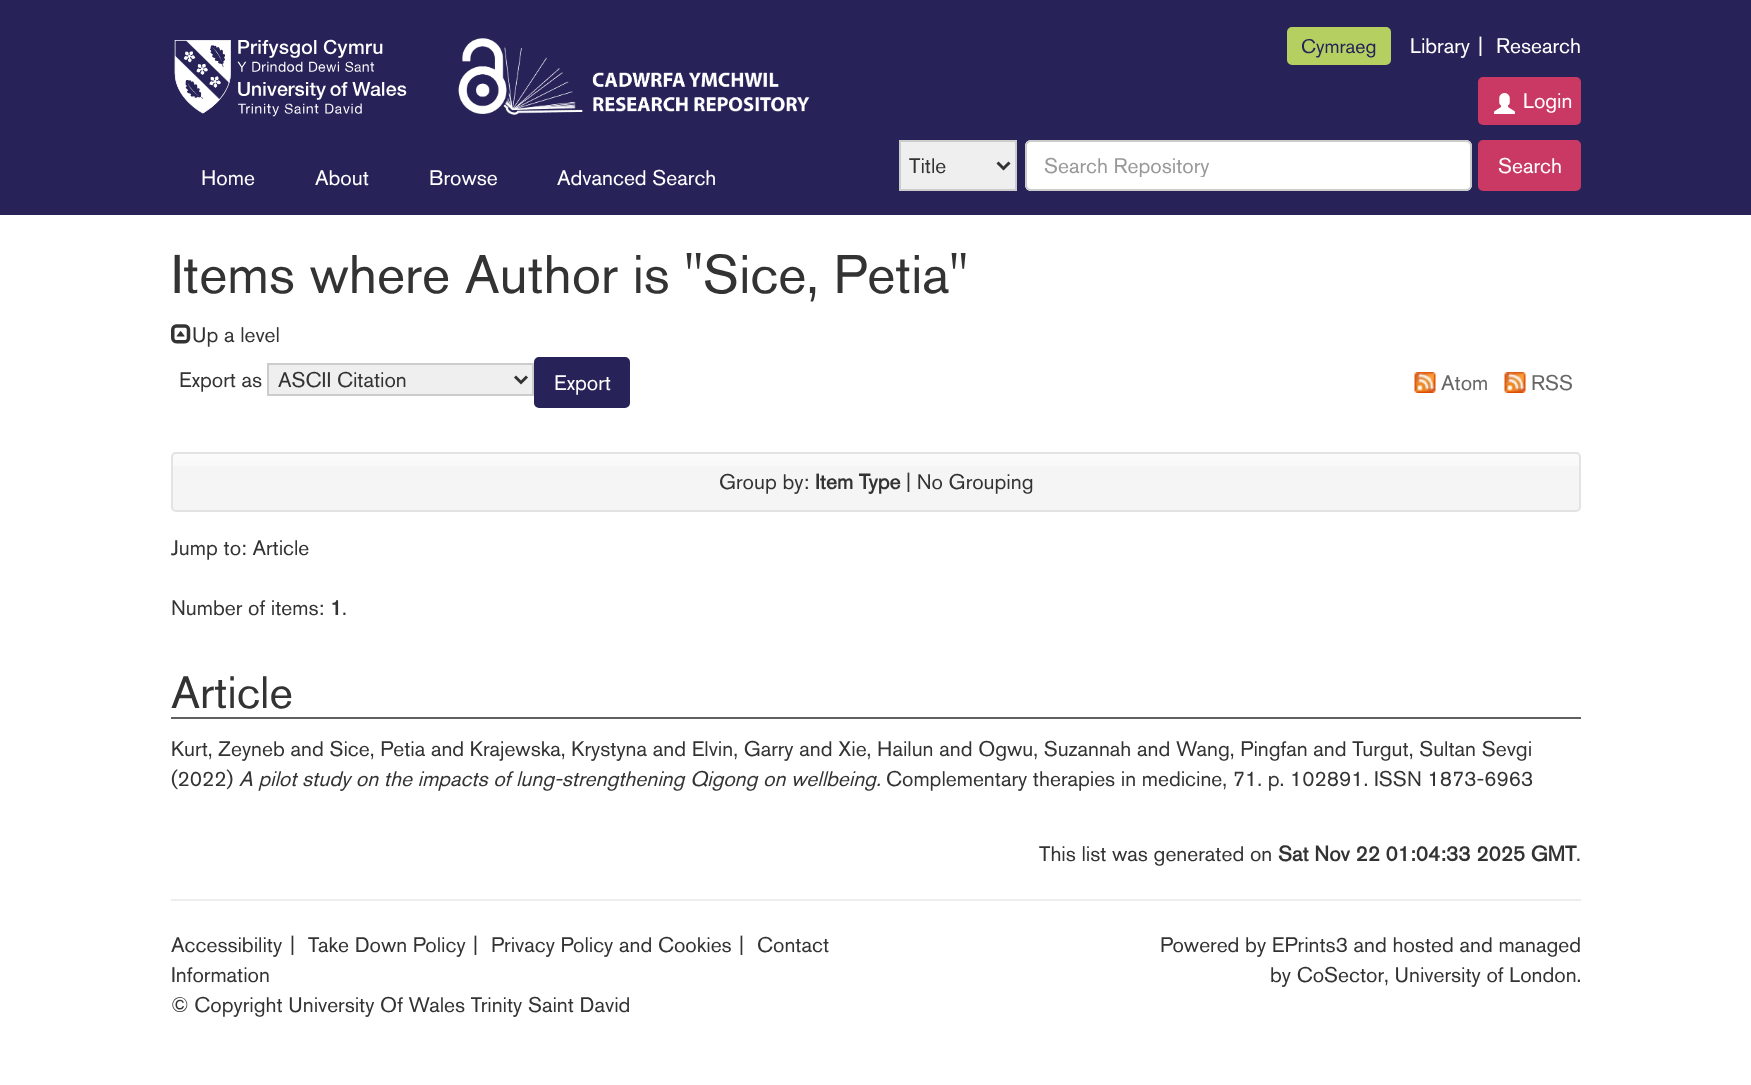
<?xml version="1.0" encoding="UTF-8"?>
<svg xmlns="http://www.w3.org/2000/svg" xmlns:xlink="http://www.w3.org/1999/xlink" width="1751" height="1085">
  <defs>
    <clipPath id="clip1"><rect x="1044" y="153" width="402" height="24" /></clipPath>
  </defs>
  <rect width="100%" height="100%" fill="#ffffff" />
  <rect width="1751" height="215" fill="#272359" />
  <image x="174" y="39" width="233" height="78" xlink:href="image1.png" />
  <image x="458" y="38" width="352" height="77" xlink:href="image2.png" />
  <rect x="1288" y="28" width="102" height="36" rx="4" fill="#b6cf61" stroke="#b6cf61" stroke-width="2" />
  <rect x="1479" y="78" width="101" height="46" rx="4" fill="#c93963" stroke="#c93963" stroke-width="2" />
  <image x="1494" y="93" width="21" height="21" xlink:href="image3.png" />
  <rect x="900" y="141" width="116" height="49" fill="#efefef" stroke="#cccccc" stroke-width="2" />
  <path d="M 997.5 162.5 l 6 6 l 6 -6" fill="none" stroke="#333333" stroke-width="3" />
  <rect x="1025" y="140" width="447" height="51" rx="6" fill="#ffffff" />
  <path d="M 1030 142 h 436 c 2 0 4 3 4 5 c 0 -3 -2 -6 -5 -6 h -434 c -3 0 -5 3 -5 6 c 0 -2 2 -5 4 -5 z" fill="#ececec" />
  <rect x="1026" y="141" width="445" height="49" rx="5" fill="none" stroke="#cccccc" stroke-width="2" />
  <rect x="1479" y="141" width="101" height="49" rx="4" fill="#c93963" stroke="#c93963" stroke-width="2" />
  <image x="171" y="324" width="20" height="20" xlink:href="image4.png" />
  <rect x="268" y="364" width="265" height="31" fill="#efefef" stroke="#cccccc" stroke-width="2" />
  <path d="M 515 376.5 l 6 6 l 6 -6" fill="none" stroke="#333333" stroke-width="3" />
  <rect x="535" y="358" width="94" height="49" rx="4" fill="#272359" stroke="#272359" stroke-width="2" />
  <image x="1414" y="372" width="22" height="21" xlink:href="image5.png" />
  <image x="1504" y="372" width="22" height="21" xlink:href="image5.png" />
  <rect x="171" y="452" width="1410" height="60" rx="5" fill="#f5f5f5" />
  <image x="171" y="453" width="1410" height="13" xlink:href="image6.png" />
  <rect x="172" y="453" width="1408" height="58" rx="4" fill="none" stroke="#e3e3e3" stroke-width="2" />
  <rect x="171" y="717" width="1410" height="2" fill="#606060" />
  <rect x="171" y="899" width="1410" height="2" fill="#eeeeee" />
  <text x="1301" y="53" style="font-family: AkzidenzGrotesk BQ; font-size: 19.5px; font-weight: 500; fill: #272359">Cymraeg</text>
  <text x="1410" y="53" style="font-family: AkzidenzGrotesk BQ; font-size: 21px; font-weight: 500; fill: #ffffff">Library</text>
  <text x="1478" y="53" style="font-family: AkzidenzGrotesk BQ; font-size: 21px; font-weight: 500; fill: #ffffff">|</text>
  <text x="1496" y="53" style="font-family: AkzidenzGrotesk BQ; font-size: 21px; font-weight: 500; fill: #ffffff">Research</text>
  <text x="1523" y="108" style="font-family: AkzidenzGrotesk BQ; font-size: 21px; font-weight: 500; fill: #ffffff">Login</text>
  <text x="201" y="185" style="font-family: AkzidenzGrotesk BQ; font-size: 21px; font-weight: 500; fill: #ffffff">Home</text>
  <text x="315" y="185" style="font-family: AkzidenzGrotesk BQ; font-size: 21px; font-weight: 500; fill: #ffffff">About</text>
  <text x="429" y="185" style="font-family: AkzidenzGrotesk BQ; font-size: 21px; font-weight: 500; fill: #ffffff">Browse</text>
  <text x="557" y="185" style="font-family: AkzidenzGrotesk BQ; font-size: 21px; font-weight: 500; fill: #ffffff">Advanced Search</text>
  <text x="909" y="173" style="font-family: AkzidenzGrotesk BQ; font-size: 21px; font-weight: 500; fill: #333333">Title</text>
  <g clip-path="url(#clip1)">
    <text x="1044" y="173" style="font-family: AkzidenzGrotesk BQ; font-size: 21px; font-weight: 500; fill: #999999">Search Repository</text>
  </g>
  <text x="1498" y="173" style="font-family: AkzidenzGrotesk BQ; font-size: 21px; font-weight: 500; fill: #ffffff">Search</text>
  <text x="171" y="293" style="font-family: AkzidenzGrotesk BQ; font-size: 54px; font-weight: 500; fill: #333333">Items where Author is "Sice, Petia"</text>
  <text x="192" y="342" style="font-family: AkzidenzGrotesk BQ; font-size: 21px; font-weight: 500; fill: #333333">Up a level</text>
  <text x="179" y="387" style="font-family: AkzidenzGrotesk BQ; font-size: 21px; font-weight: 500; fill: #333333">Export as</text>
  <text x="278" y="387" style="font-family: AkzidenzGrotesk BQ; font-size: 21px; font-weight: 500; fill: #333333">ASCII Citation</text>
  <text x="554" y="390" style="font-family: AkzidenzGrotesk BQ; font-size: 21px; font-weight: 500; fill: #ffffff">Export</text>
  <text x="1441" y="390" style="font-family: AkzidenzGrotesk BQ; font-size: 21px; font-weight: 500; fill: #666666">Atom</text>
  <text x="1531" y="390" style="font-family: AkzidenzGrotesk BQ; font-size: 21px; font-weight: 500; fill: #666666">RSS</text>
  <text x="719" y="489" style="font-family: AkzidenzGrotesk BQ; font-size: 21px; font-weight: 500; fill: #333333">Group by:</text>
  <text x="815" y="489" style="font-family: AkzidenzGrotesk BQ; font-size: 21px; font-weight: bold; fill: #333333">Item Type</text>
  <text x="906" y="489" style="font-family: AkzidenzGrotesk BQ; font-size: 21px; font-weight: 500; fill: #333333">| No Grouping</text>
  <text x="171" y="555" style="font-family: AkzidenzGrotesk BQ; font-size: 21px; font-weight: 500; fill: #333333">Jump to: Article</text>
  <text x="171" y="615" style="font-family: AkzidenzGrotesk BQ; font-size: 21px; font-weight: 500; fill: #333333">Number of items:</text>
  <text x="330" y="615" style="font-family: AkzidenzGrotesk BQ; font-size: 21px; font-weight: bold; fill: #333333">1</text>
  <text x="342" y="615" style="font-family: AkzidenzGrotesk BQ; font-size: 21px; font-weight: 500; fill: #333333">.</text>
  <text x="171" y="708" style="font-family: AkzidenzGrotesk BQ; font-size: 45px; font-weight: 500; fill: #333333">Article</text>
  <text x="171" y="756" style="font-family: AkzidenzGrotesk BQ; font-size: 21px; font-weight: 500; fill: #333333">Kurt, Zeyneb and Sice, Petia and Krajewska, Krystyna and Elvin, Garry and Xie, Hailun and Ogwu, Suzannah and Wang, Pingfan and Turgut, Sultan Sevgi</text>
  <text x="171" y="786" style="font-family: AkzidenzGrotesk BQ; font-size: 21px; font-weight: 500; fill: #333333">(2022)</text>
  <text x="239" y="786" style="font-family: AkzidenzGrotesk BQ; font-size: 21px; font-weight: 500; font-style: italic; fill: #333333">A pilot study on the impacts of lung-strengthening Qigong on wellbeing.</text>
  <text x="886" y="786" style="font-family: AkzidenzGrotesk BQ; font-size: 21px; font-weight: 500; fill: #333333">Complementary therapies in medicine, 71. p. 102891. ISSN 1873-6963</text>
  <text x="1039" y="861" style="font-family: AkzidenzGrotesk BQ; font-size: 21px; font-weight: 500; fill: #333333">This list was generated on</text>
  <text x="1278" y="861" style="font-family: AkzidenzGrotesk BQ; font-size: 21px; font-weight: bold; fill: #333333">Sat Nov 22 01:04:33 2025 GMT</text>
  <text x="1576" y="861" style="font-family: AkzidenzGrotesk BQ; font-size: 21px; font-weight: 500; fill: #333333">.</text>
  <text x="171" y="952" style="font-family: AkzidenzGrotesk BQ; font-size: 21px; font-weight: 500; fill: #333333">Accessibility</text>
  <text x="290" y="952" style="font-family: AkzidenzGrotesk BQ; font-size: 21px; font-weight: 500; fill: #333333">|</text>
  <text x="308" y="952" style="font-family: AkzidenzGrotesk BQ; font-size: 21px; font-weight: 500; fill: #333333">Take Down Policy</text>
  <text x="473" y="952" style="font-family: AkzidenzGrotesk BQ; font-size: 21px; font-weight: 500; fill: #333333">|</text>
  <text x="491" y="952" style="font-family: AkzidenzGrotesk BQ; font-size: 21px; font-weight: 500; fill: #333333">Privacy Policy and Cookies</text>
  <text x="739" y="952" style="font-family: AkzidenzGrotesk BQ; font-size: 21px; font-weight: 500; fill: #333333">|</text>
  <text x="757" y="952" style="font-family: AkzidenzGrotesk BQ; font-size: 21px; font-weight: 500; fill: #333333">Contact</text>
  <text x="171" y="982" style="font-family: AkzidenzGrotesk BQ; font-size: 21px; font-weight: 500; fill: #333333">Information</text>
  <text x="171" y="1012" style="font-family: AkzidenzGrotesk BQ; font-size: 21px; font-weight: 500; fill: #333333">© Copyright University Of Wales Trinity Saint David</text>
  <text x="1160" y="952" style="font-family: AkzidenzGrotesk BQ; font-size: 21px; font-weight: 500; fill: #333333">Powered by EPrints3 and hosted and managed</text>
  <text x="1270" y="982" style="font-family: AkzidenzGrotesk BQ; font-size: 21px; font-weight: 500; fill: #333333">by CoSector, University of London.</text>
</svg>
